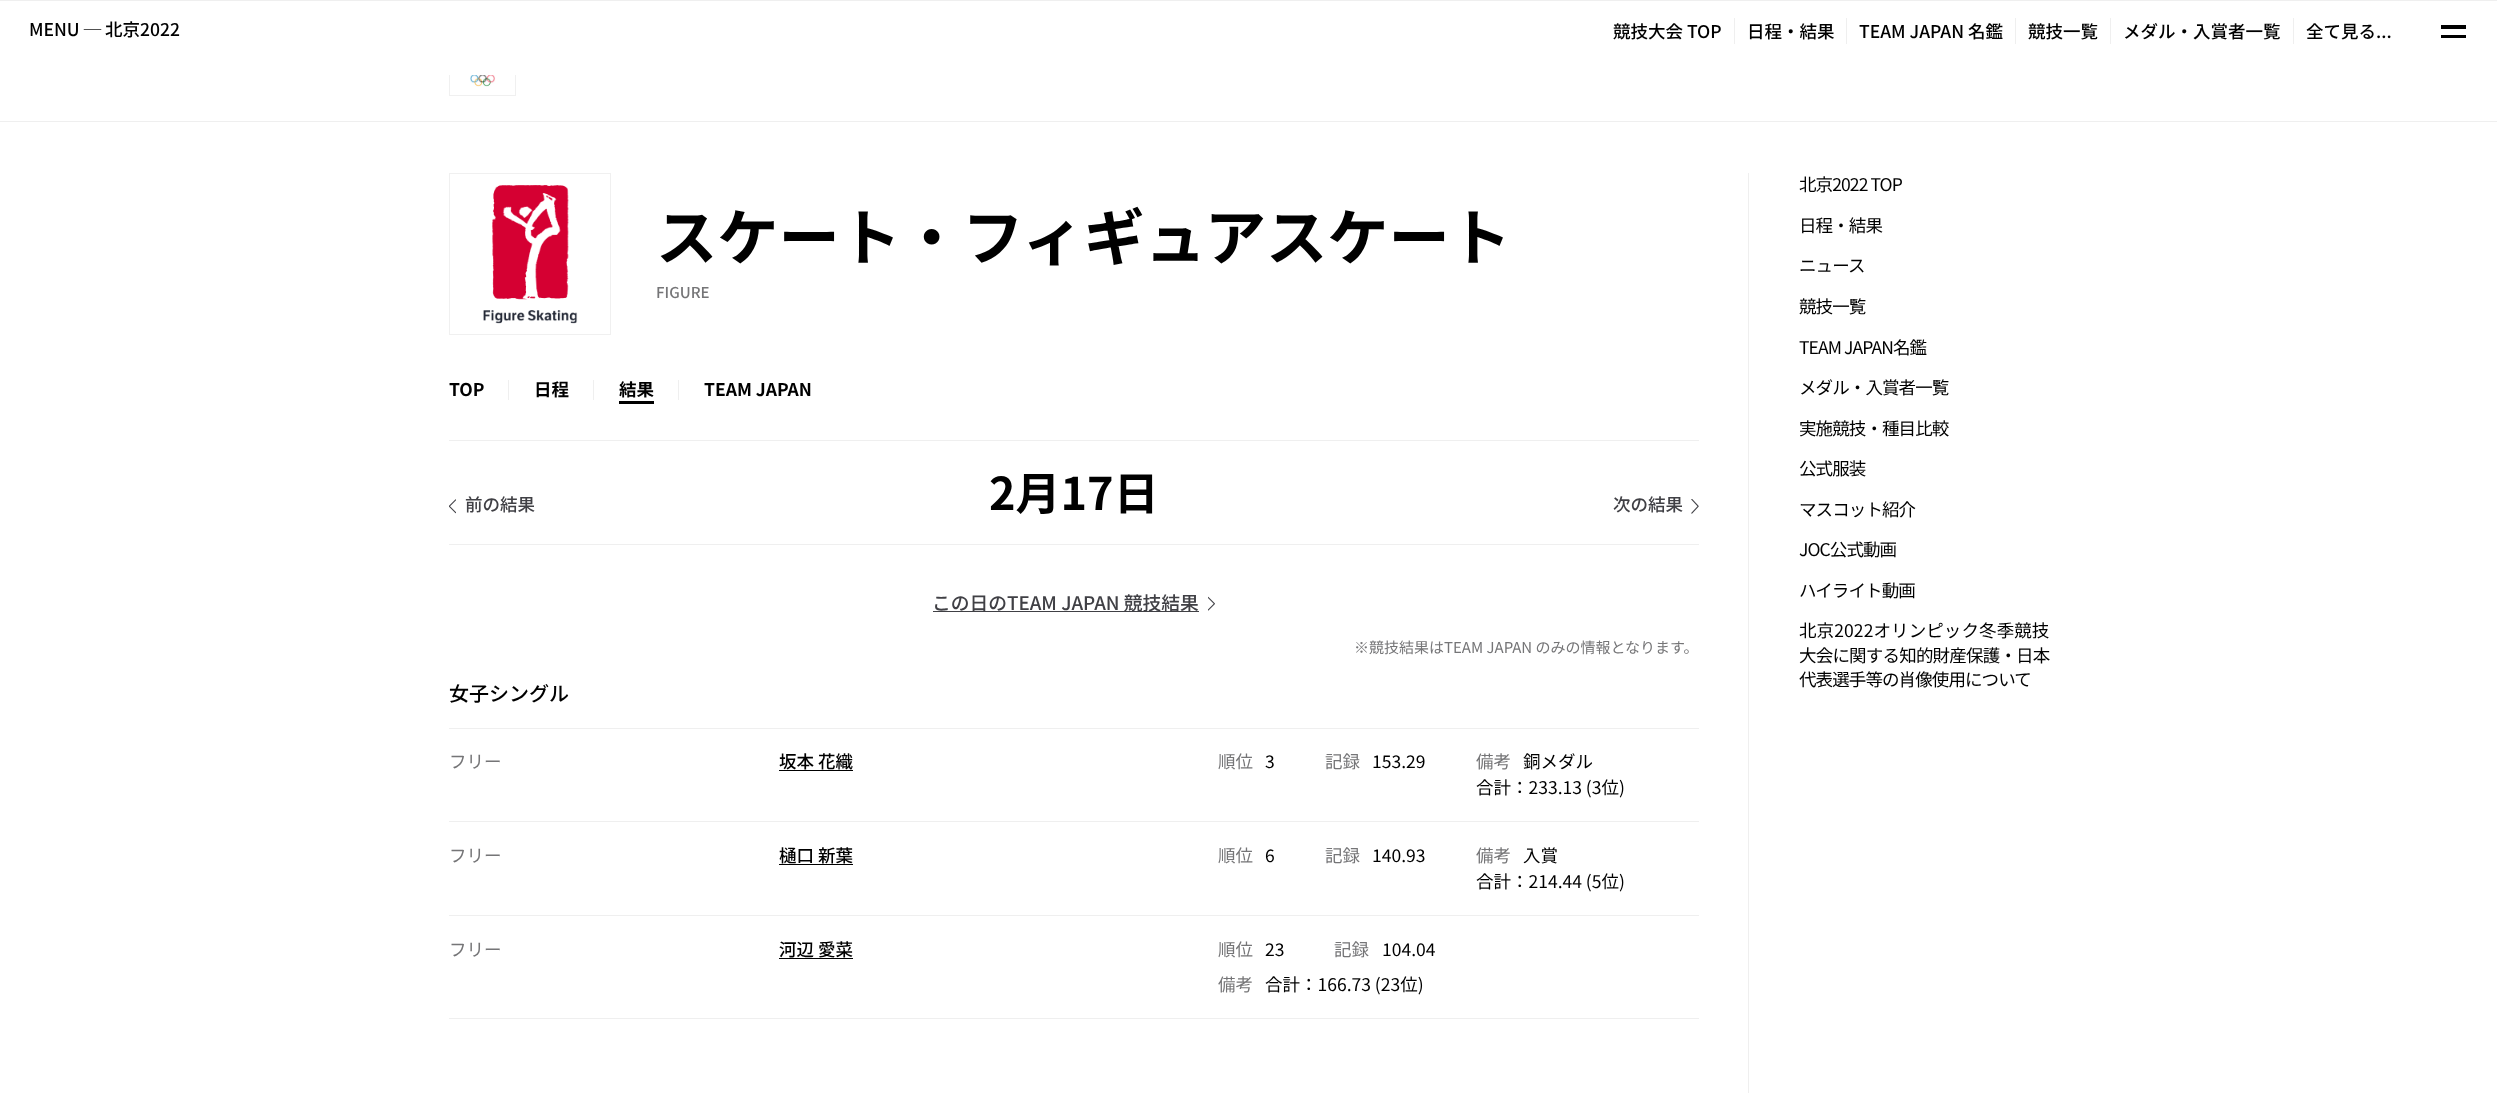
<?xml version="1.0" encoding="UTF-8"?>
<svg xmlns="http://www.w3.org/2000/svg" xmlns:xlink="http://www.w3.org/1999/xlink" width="2497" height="1093">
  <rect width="100%" height="100%" fill="#ffffff" />
  <rect x="449.5" y="29.5" width="66" height="66" fill="none" stroke="#f0f0f0" />
  <rect x="449" y="29" width="67" height="46" fill="#ffffff" />
  <rect width="2497" height="1" fill="#efefef" />
  <rect x="1734" y="18" width="1" height="26" fill="#efefef" />
  <rect x="1846" y="18" width="1" height="26" fill="#efefef" />
  <rect x="2015" y="18" width="1" height="26" fill="#efefef" />
  <rect x="2110" y="18" width="1" height="26" fill="#efefef" />
  <rect x="2293" y="18" width="1" height="26" fill="#efefef" />
  <rect x="2441" y="25" width="25" height="4" fill="#000000" />
  <rect x="2441" y="35" width="25" height="3" fill="#000000" />
  <image x="463" y="75" width="39" height="12" xlink:href="image1.png" />
  <rect y="121" width="2497" height="1" fill="#efefef" />
  <rect x="449.5" y="173.5" width="161" height="161" fill="none" stroke="#f0f0f0" />
  <image x="483" y="185" width="95" height="139" xlink:href="image2.png" />
  <rect x="508" y="380" width="1" height="20" fill="#efefef" />
  <rect x="593" y="380" width="1" height="20" fill="#efefef" />
  <rect x="619" y="401" width="35" height="3" fill="#000000" />
  <rect x="678" y="380" width="1" height="20" fill="#efefef" />
  <rect x="1748" y="173" width="1" height="920" fill="#efefef" />
  <rect x="449" y="440" width="1250" height="1" fill="#efefef" />
  <rect x="449" y="544" width="1250" height="1" fill="#efefef" />
  <image x="449" y="499" width="7" height="15" xlink:href="image3.png" />
  <image x="1691" y="499" width="8" height="15" xlink:href="image4.png" />
  <rect x="933" y="611" width="266" height="1" fill="#404045" />
  <image x="1208" y="596" width="7" height="15" xlink:href="image5.png" />
  <rect x="449" y="728" width="1250" height="1" fill="#efefef" />
  <rect x="449" y="821" width="1250" height="1" fill="#efefef" />
  <rect x="779" y="770" width="74" height="1" fill="#000000" />
  <rect x="449" y="915" width="1250" height="1" fill="#efefef" />
  <rect x="779" y="864" width="74" height="1" fill="#000000" />
  <rect x="449" y="1018" width="1250" height="1" fill="#efefef" />
  <rect x="779" y="958" width="74" height="1" fill="#000000" />
  <text x="29" y="36" style="font-family: Noto Sans JP; font-size: 17.5px; font-weight: 500; fill: #000000">MENU ─ 北京2022</text>
  <text x="1613" y="38" style="font-family: Noto Sans JP; font-size: 17.5px; font-weight: 500; fill: #000000">競技大会 TOP</text>
  <text x="1747" y="38" style="font-family: Noto Sans JP; font-size: 17.5px; font-weight: 500; fill: #000000">日程・結果</text>
  <text x="1859" y="38" style="font-family: Noto Sans JP; font-size: 17.5px; font-weight: 500; fill: #000000">TEAM JAPAN 名鑑</text>
  <text x="2028" y="38" style="font-family: Noto Sans JP; font-size: 17.5px; font-weight: 500; fill: #000000">競技一覧</text>
  <text x="2123" y="38" style="font-family: Noto Sans JP; font-size: 17.5px; font-weight: 500; fill: #000000">メダル・入賞者一覧</text>
  <text x="2306" y="38" style="font-family: Noto Sans JP; font-size: 17.5px; font-weight: 500; fill: #000000">全て見る...</text>
  <text x="656" y="260" style="font-family: Noto Sans JP; font-size: 61.25px; font-weight: bold; fill: #000000">スケート・フィギュアスケート</text>
  <text x="656" y="298" style="font-family: Noto Sans JP; font-size: 15px; font-weight: 500; fill: #757577">FIGURE</text>
  <text x="449" y="396" style="font-family: Noto Sans JP; font-size: 17.5px; font-weight: bold; fill: #000000">TOP</text>
  <text x="534" y="396" style="font-family: Noto Sans JP; font-size: 17.5px; font-weight: bold; fill: #000000">日程</text>
  <text x="619" y="396" style="font-family: Noto Sans JP; font-size: 17.5px; font-weight: bold; fill: #000000">結果</text>
  <text x="704" y="396" style="font-family: Noto Sans JP; font-size: 17.5px; font-weight: bold; fill: #000000">TEAM JAPAN</text>
  <text x="989" y="510" style="font-family: Noto Sans JP; font-size: 45px; font-weight: bold; fill: #000000">2月17日</text>
  <text x="465" y="511" style="font-family: Noto Sans JP; font-size: 17.5px; font-weight: 500; fill: #404045">前の結果</text>
  <text x="1613" y="511" style="font-family: Noto Sans JP; font-size: 17.5px; font-weight: 500; fill: #404045">次の結果</text>
  <text x="932" y="610" style="font-family: Noto Sans JP; font-size: 18.75px; font-weight: 500; fill: #404045">この日のTEAM JAPAN 競技結果</text>
  <text x="1354" y="653" style="font-family: Noto Sans JP; font-size: 15px; fill: #757577">※競技結果はTEAM JAPAN のみの情報となります。</text>
  <text x="449" y="701" style="font-family: Noto Sans JP; font-size: 20px; font-weight: 500; fill: #000000">女子シングル</text>
  <text x="449" y="768" style="font-family: Noto Sans JP; font-size: 17.5px; fill: #757577">フリー</text>
  <text x="779" y="768" style="font-family: Noto Sans JP; font-size: 17.5px; font-weight: 500; fill: #000000">坂本 花織</text>
  <text x="1218" y="768" style="font-family: Noto Sans JP; font-size: 17.5px; fill: #757577">順位</text>
  <text x="1265" y="768" style="font-family: Noto Sans JP; font-size: 17.5px; fill: #000000">3</text>
  <text x="1325" y="768" style="font-family: Noto Sans JP; font-size: 17.5px; fill: #757577">記録</text>
  <text x="1372" y="768" style="font-family: Noto Sans JP; font-size: 17.5px; fill: #000000">153.29</text>
  <text x="1476" y="768" style="font-family: Noto Sans JP; font-size: 17.5px; fill: #757577">備考</text>
  <text x="1523" y="768" style="font-family: Noto Sans JP; font-size: 17.5px; fill: #000000">銅メダル</text>
  <text x="1476" y="794" style="font-family: Noto Sans JP; font-size: 17.5px; fill: #000000">合計：233.13 (3位)</text>
  <text x="449" y="862" style="font-family: Noto Sans JP; font-size: 17.5px; fill: #757577">フリー</text>
  <text x="779" y="862" style="font-family: Noto Sans JP; font-size: 17.5px; font-weight: 500; fill: #000000">樋口 新葉</text>
  <text x="1218" y="862" style="font-family: Noto Sans JP; font-size: 17.5px; fill: #757577">順位</text>
  <text x="1265" y="862" style="font-family: Noto Sans JP; font-size: 17.5px; fill: #000000">6</text>
  <text x="1325" y="862" style="font-family: Noto Sans JP; font-size: 17.5px; fill: #757577">記録</text>
  <text x="1372" y="862" style="font-family: Noto Sans JP; font-size: 17.5px; fill: #000000">140.93</text>
  <text x="1476" y="862" style="font-family: Noto Sans JP; font-size: 17.5px; fill: #757577">備考</text>
  <text x="1523" y="862" style="font-family: Noto Sans JP; font-size: 17.5px; fill: #000000">入賞</text>
  <text x="1476" y="888" style="font-family: Noto Sans JP; font-size: 17.5px; fill: #000000">合計：214.44 (5位)</text>
  <text x="449" y="956" style="font-family: Noto Sans JP; font-size: 17.5px; fill: #757577">フリー</text>
  <text x="779" y="956" style="font-family: Noto Sans JP; font-size: 17.5px; font-weight: 500; fill: #000000">河辺 愛菜</text>
  <text x="1218" y="956" style="font-family: Noto Sans JP; font-size: 17.5px; fill: #757577">順位</text>
  <text x="1265" y="956" style="font-family: Noto Sans JP; font-size: 17.5px; fill: #000000">23</text>
  <text x="1334" y="956" style="font-family: Noto Sans JP; font-size: 17.5px; fill: #757577">記録</text>
  <text x="1382" y="956" style="font-family: Noto Sans JP; font-size: 17.5px; fill: #000000">104.04</text>
  <text x="1218" y="991" style="font-family: Noto Sans JP; font-size: 17.5px; fill: #757577">備考</text>
  <text x="1265" y="991" style="font-family: Noto Sans JP; font-size: 17.5px; fill: #000000">合計：166.73 (23位)</text>
  <text x="1799" y="191" style="font-family: Noto Sans JP; font-size: 17.5px; letter-spacing: -0.9px; fill: #000000">北京2022 TOP</text>
  <text x="1799" y="232" style="font-family: Noto Sans JP; font-size: 17.5px; letter-spacing: -0.9px; fill: #000000">日程・結果</text>
  <text x="1799" y="272" style="font-family: Noto Sans JP; font-size: 17.5px; letter-spacing: -0.9px; fill: #000000">ニュース</text>
  <text x="1799" y="313" style="font-family: Noto Sans JP; font-size: 17.5px; letter-spacing: -0.9px; fill: #000000">競技一覧</text>
  <text x="1799" y="354" style="font-family: Noto Sans JP; font-size: 17.5px; letter-spacing: -0.9px; fill: #000000">TEAM JAPAN名鑑</text>
  <text x="1799" y="394" style="font-family: Noto Sans JP; font-size: 17.5px; letter-spacing: -0.9px; fill: #000000">メダル・入賞者一覧</text>
  <text x="1799" y="435" style="font-family: Noto Sans JP; font-size: 17.5px; letter-spacing: -0.9px; fill: #000000">実施競技・種目比較</text>
  <text x="1799" y="475" style="font-family: Noto Sans JP; font-size: 17.5px; letter-spacing: -0.9px; fill: #000000">公式服装</text>
  <text x="1799" y="516" style="font-family: Noto Sans JP; font-size: 17.5px; letter-spacing: -0.9px; fill: #000000">マスコット紹介</text>
  <text x="1799" y="556" style="font-family: Noto Sans JP; font-size: 17.5px; letter-spacing: -0.9px; fill: #000000">JOC公式動画</text>
  <text x="1799" y="597" style="font-family: Noto Sans JP; font-size: 17.5px; letter-spacing: -0.9px; fill: #000000">ハイライト動画</text>
  <text x="1799" y="637" style="font-family: Noto Sans JP; font-size: 17.5px; letter-spacing: 0.1px; fill: #000000">北京2022オリンピック冬季競技</text>
  <text x="1799" y="662" style="font-family: Noto Sans JP; font-size: 17.5px; letter-spacing: -0.8px; fill: #000000">大会に関する知的財産保護・日本</text>
  <text x="1799" y="686" style="font-family: Noto Sans JP; font-size: 17.5px; letter-spacing: -0.9px; fill: #000000">代表選手等の肖像使用について</text>
</svg>
